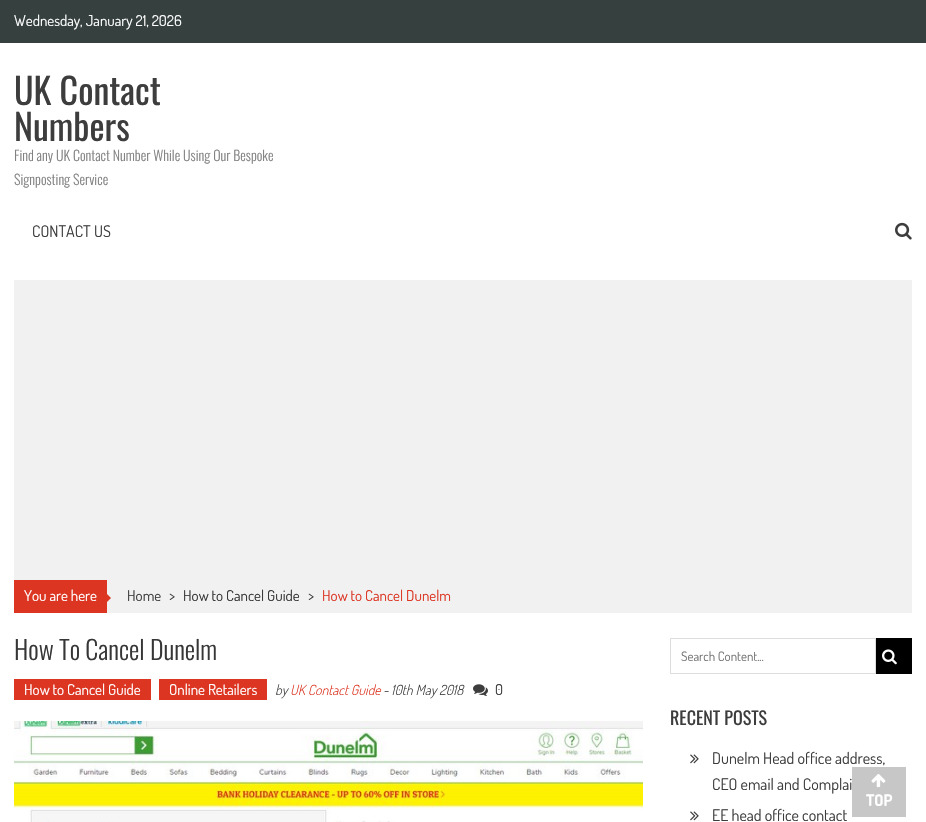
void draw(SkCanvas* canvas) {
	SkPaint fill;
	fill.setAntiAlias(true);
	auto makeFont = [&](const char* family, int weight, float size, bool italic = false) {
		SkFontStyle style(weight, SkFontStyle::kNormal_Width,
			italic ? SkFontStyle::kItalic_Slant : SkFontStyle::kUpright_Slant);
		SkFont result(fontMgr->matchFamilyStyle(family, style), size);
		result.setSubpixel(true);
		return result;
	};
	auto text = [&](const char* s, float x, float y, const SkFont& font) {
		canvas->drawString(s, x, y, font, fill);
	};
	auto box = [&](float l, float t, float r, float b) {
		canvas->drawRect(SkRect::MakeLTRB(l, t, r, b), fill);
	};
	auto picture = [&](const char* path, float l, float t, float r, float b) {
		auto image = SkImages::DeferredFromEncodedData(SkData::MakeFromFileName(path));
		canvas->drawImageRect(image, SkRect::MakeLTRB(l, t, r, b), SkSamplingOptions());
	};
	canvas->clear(0xFFFFFFFF);
	fill.setColor(0xFF36403F);
	box(0, 0, 926, 43);
	picture("image0.png", 895, 222, 912, 240);
	fill.setColor(0xFFF1F1F1);
	box(14, 280, 912, 613);
	fill.setColor(0xFFDC3522);
	box(14, 580, 107, 613);
	canvas->drawPath(SkPathBuilder().moveTo(106, 603).lineTo(106, 593).lineTo(111, 598).close().detach(), fill);
	box(14, 679, 151, 700);
	box(159, 679, 267, 700);
	picture("image1.png", 473, 684, 488, 696);
	picture("image2.png", 14, 721, 643, 822);
	fill.setStyle(SkPaint::kStroke_Style);
	fill.setStrokeWidth(1);
	fill.setColor(0xFFDDDDDD);
	canvas->drawRect(SkRect::MakeLTRB(670.5f, 638.5f, 875.5f, 673.5f), fill);
	fill.setStyle(SkPaint::kFill_Style);
	fill.setColor(0xFF000000);
	box(876, 638, 912, 674);
	picture("image3.png", 882, 649, 897, 665);
	picture("image4.png", 690, 754, 699, 764);
	picture("image4.png", 690, 811, 699, 821);
	fill.setColor(0xFFC7C7C7);
	box(852, 767, 906, 817);
	picture("image5.png", 871, 774, 886, 788);
	auto font1 = makeFont("Dosis", 400, 15);
	fill.setColor(0xFFFFFFFF);
	text("Wednesday, January 21, 2026", 14, 26, font1);
	auto font2 = makeFont("Oswald", 400, 36);
	fill.setColor(0xFF3D3D3D);
	text("UK Contact", 14, 105, font2);
	text("Numbers", 14, 141, font2);
	auto font3 = makeFont("Oswald", 300, 14);
	fill.setColor(0xFF818181);
	text("Find any UK Contact Number While Using Our Bespoke", 14, 161, font3);
	text("Signposting Service", 14, 185, font3);
	auto font4 = makeFont("Dosis", 400, 16);
	fill.setColor(0xFF3D3D3D);
	text("CONTACT US", 32, 237, font4);
	fill.setColor(0xFFFFFFFF);
	text("You are here", 24, 601, font1);
	fill.setColor(0xFF3D3D3D);
	text("Home", 127, 601, font1);
	text(">", 169, 601, font1);
	fill.setColor(0xFF363636);
	text("How to Cancel Guide", 183, 601, font1);
	fill.setColor(0xFF3D3D3D);
	text(">", 308, 601, font1);
	fill.setColor(0xFFDC3522);
	text("How to Cancel Dunelm", 322, 601, font1);
	auto font5 = makeFont("Oswald", 300, 26);
	fill.setColor(0xFF363636);
	text("How To Cancel Dunelm", 14, 660, font5);
	fill.setColor(0xFFFFFFFF);
	text("How to Cancel Guide", 24, 695, font1);
	text("Online Retailers", 169, 695, font1);
	auto font6 = makeFont("Dosis", 300, 14, true);
	fill.setColor(0xFF3D3D3D);
	text("by", 275, 695, font6);
	fill.setColor(0xFFDC3522);
	text("UK Contact Guide", 290, 695, font6);
	fill.setColor(0xFF3D3D3D);
	text("- 10th May 2018", 383, 695, font6);
	text("0", 495, 695, font1);
	auto font7 = makeFont("Dosis", 400, 13);
	fill.setColor(0xFF757575);
	text("Search Content...", 681, 661, font7);
	auto font8 = makeFont("Oswald", 400, 18);
	fill.setColor(0xFF3D3D3D);
	text("RECENT POSTS", 670, 725, font8);
	text("Dunelm Head office address,", 712, 764, font4);
	text("CEO email and Complai", 712, 790, font4);
	text("EE head office contact", 712, 821, font4);
	auto font9 = makeFont("Dosis", 700, 16);
	fill.setColor(0xFFFFFFFF);
	text("TOP", 866, 806, font9);
}
